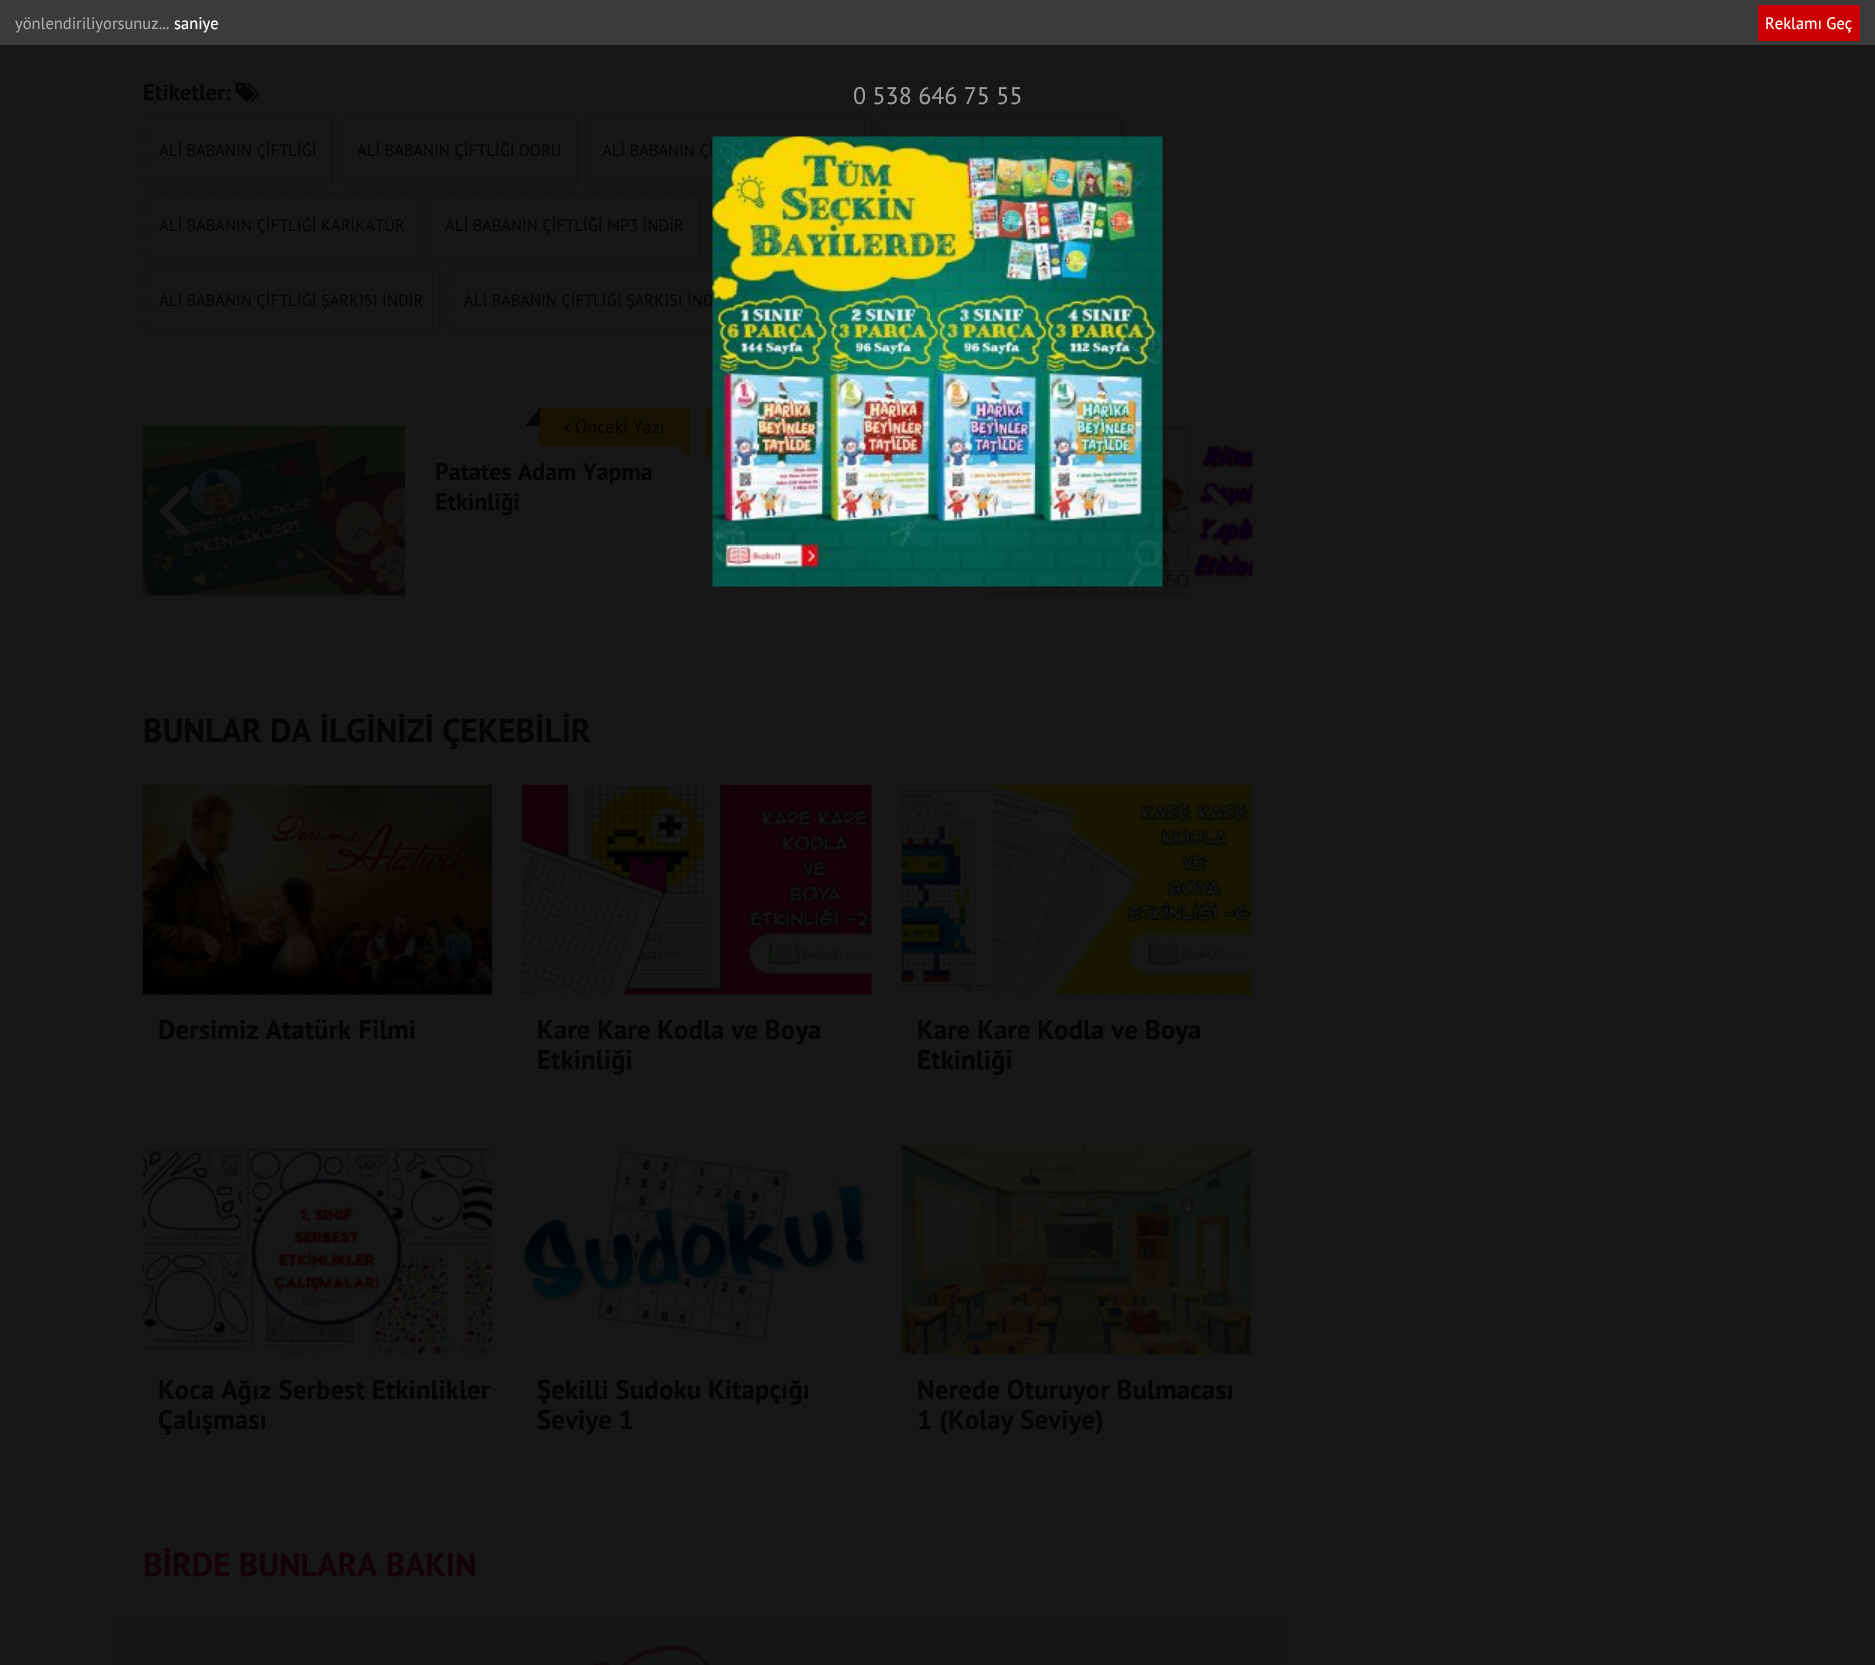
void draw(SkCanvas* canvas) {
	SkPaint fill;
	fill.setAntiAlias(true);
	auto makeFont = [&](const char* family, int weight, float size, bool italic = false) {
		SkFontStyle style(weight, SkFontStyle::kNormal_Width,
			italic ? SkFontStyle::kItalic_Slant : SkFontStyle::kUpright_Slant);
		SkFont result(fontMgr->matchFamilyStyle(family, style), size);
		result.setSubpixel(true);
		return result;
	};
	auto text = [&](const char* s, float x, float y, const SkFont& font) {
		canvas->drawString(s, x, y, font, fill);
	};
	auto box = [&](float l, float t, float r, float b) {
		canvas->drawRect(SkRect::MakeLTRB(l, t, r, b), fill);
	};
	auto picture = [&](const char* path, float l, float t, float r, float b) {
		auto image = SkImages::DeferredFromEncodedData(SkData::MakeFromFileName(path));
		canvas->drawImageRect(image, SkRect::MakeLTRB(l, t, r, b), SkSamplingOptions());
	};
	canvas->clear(0xFF171717);
	picture("image0.png", 0, 0, 1874, 1664);
	fill.setColor(0xF23C3C3C);
	box(0, 0, 1875, 45);
	fill.setColor(0xFFCC0000);
	box(1758, 5, 1860, 41);
	picture("image2.png", 235, 82, 260, 102);
	fill.setStyle(SkPaint::kStroke_Style);
	fill.setStrokeWidth(2);
	fill.setColor(0xFF141414);
	canvas->drawRoundRect(SkRect::MakeLTRB(144, 118, 332, 184), 2, 2, fill);
	canvas->drawRoundRect(SkRect::MakeLTRB(342, 118, 577, 184), 2, 2, fill);
	canvas->drawRoundRect(SkRect::MakeLTRB(586, 118, 871, 184), 2, 2, fill);
	canvas->drawRoundRect(SkRect::MakeLTRB(880, 118, 1121, 184), 2, 2, fill);
	canvas->drawRoundRect(SkRect::MakeLTRB(144, 193, 421, 259), 2, 2, fill);
	canvas->drawRoundRect(SkRect::MakeLTRB(430, 193, 700, 259), 2, 2, fill);
	canvas->drawRoundRect(SkRect::MakeLTRB(709, 193, 944, 259), 2, 2, fill);
	canvas->drawRoundRect(SkRect::MakeLTRB(144, 268, 439, 334), 2, 2, fill);
	canvas->drawRoundRect(SkRect::MakeLTRB(448, 268, 839, 334), 2, 2, fill);
	fill.setStyle(SkPaint::kFill_Style);
	fill.setColor(0xFF171201);
	box(539, 408, 690, 446);
	fill.setColor(0xF2050505);
	canvas->drawPath(SkPathBuilder().moveTo(540, 426).lineTo(525, 426).lineTo(540, 408).close().detach(), fill);
	picture("image3.png", 564, 422, 571, 433);
	fill.setColor(0xFF171201);
	canvas->drawPath(SkPathBuilder().moveTo(675, 444).lineTo(690, 444).lineTo(690, 459).close().detach(), fill);
	picture("image4.png", 142, 426, 405, 596);
	picture("image5.png", 159, 486, 189, 537);
	box(705, 408, 713, 444);
	canvas->drawPath(SkPathBuilder().moveTo(705, 444).lineTo(720, 444).lineTo(705, 459).close().detach(), fill);
	picture("image6.png", 990, 426, 1253, 595);
	fill.setColor(0xFF171717);
	canvas->drawPath(SkPathBuilder().moveTo(1235, 510).cubicTo(1238, 512, 1232, 516, 1231, 516).lineTo(1216, 532).cubicTo(1216, 532, 1212, 538, 1210, 536).cubicTo(1209, 535, 1205, 533, 1207, 531).lineTo(1227, 511).lineTo(1210, 495).cubicTo(1207, 491, 1205, 491, 1208, 488).cubicTo(1212, 484, 1212, 487, 1216, 490).close().detach(), fill);
	picture("image7.png", 142, 784, 492, 995);
	picture("image8.png", 522, 784, 872, 995);
	picture("image9.png", 901, 784, 1251, 995);
	picture("image10.png", 142, 1144, 492, 1355);
	picture("image11.png", 522, 1145, 868, 1346);
	picture("image12.png", 901, 1144, 1251, 1355);
	picture("image13.png", 113, 1619, 1283, 1665);
	auto font1 = makeFont("PT Sans", 400, 16.5f);
	fill.setColor(0xFFABABAB);
	text("yönlendiriliyorsunuz...", 15, 29, font1);
	fill.setColor(0xFFFFFFFF);
	text("saniye", 174, 29, font1);
	text("Reklamı Geç", 1765, 29, font1);
	auto font2 = makeFont("PT Sans", 400, 24);
	fill.setColor(0xFFA09F9F);
	text("0 538 646 75 55", 853, 104, font2);
	auto font3 = makeFont("PT Sans", 700, 22.5f);
	fill.setColor(0xFF040404);
	text("Etiketler:", 143, 100, font3);
	text("ALİ BABANIN ÇİFTLİĞİ", 159, 156, font1);
	text("ALİ BABANIN ÇİFTLİĞİ DORU", 357, 156, font1);
	text("ALİ BABANIN Çİ", 602, 156, font1);
	text("ALİ BABANIN ÇİFTLİĞİ KARİKATÜR", 159, 231, font1);
	text("ALİ BABANIN ÇİFTLİĞİ MP3 İNDİR", 445, 231, font1);
	text("ALİ BABANIN ÇİFTLİĞİ ŞARKISI İNDİR", 159, 306, font1);
	text("ALİ BABANIN ÇİFTLİĞİ ŞARKISI İND", 464, 306, font1);
	picture("image1.png", 712, 136, 1163, 587);
	auto font4 = makeFont("PT Sans", 400, 18);
	text("Önceki Yazı", 575, 433, font4);
	auto font5 = makeFont("PT Sans", 700, 24);
	text("Patates Adam Yapma", 435, 480, font5);
	text("Etkinliği", 435, 510, font5);
	auto font6 = makeFont("PT Sans", 700, 33);
	text("BUNLAR DA İLGİNİZİ ÇEKEBİLİR", 143, 742, font6);
	auto font7 = makeFont("PT Sans", 700, 27);
	text("Dersimiz Atatürk Filmi", 158, 1039, font7);
	text("Kare Kare Kodla ve Boya", 537, 1039, font7);
	text("Etkinliği", 537, 1069, font7);
	text("Kare Kare Kodla ve Boya", 917, 1039, font7);
	text("Etkinliği", 917, 1069, font7);
	text("Koca Ağız Serbest Etkinlikler", 158, 1399, font7);
	text("Çalışması", 158, 1429, font7);
	text("Şekilli Sudoku Kitapçığı", 537, 1399, font7);
	text("Seviye 1", 537, 1429, font7);
	text("Nerede Oturuyor Bulmacası", 917, 1399, font7);
	text("1 (Kolay Seviye)", 917, 1429, font7);
	fill.setColor(0xFF150108);
	text("BİRDE BUNLARA BAKIN", 143, 1576, font6);
}
